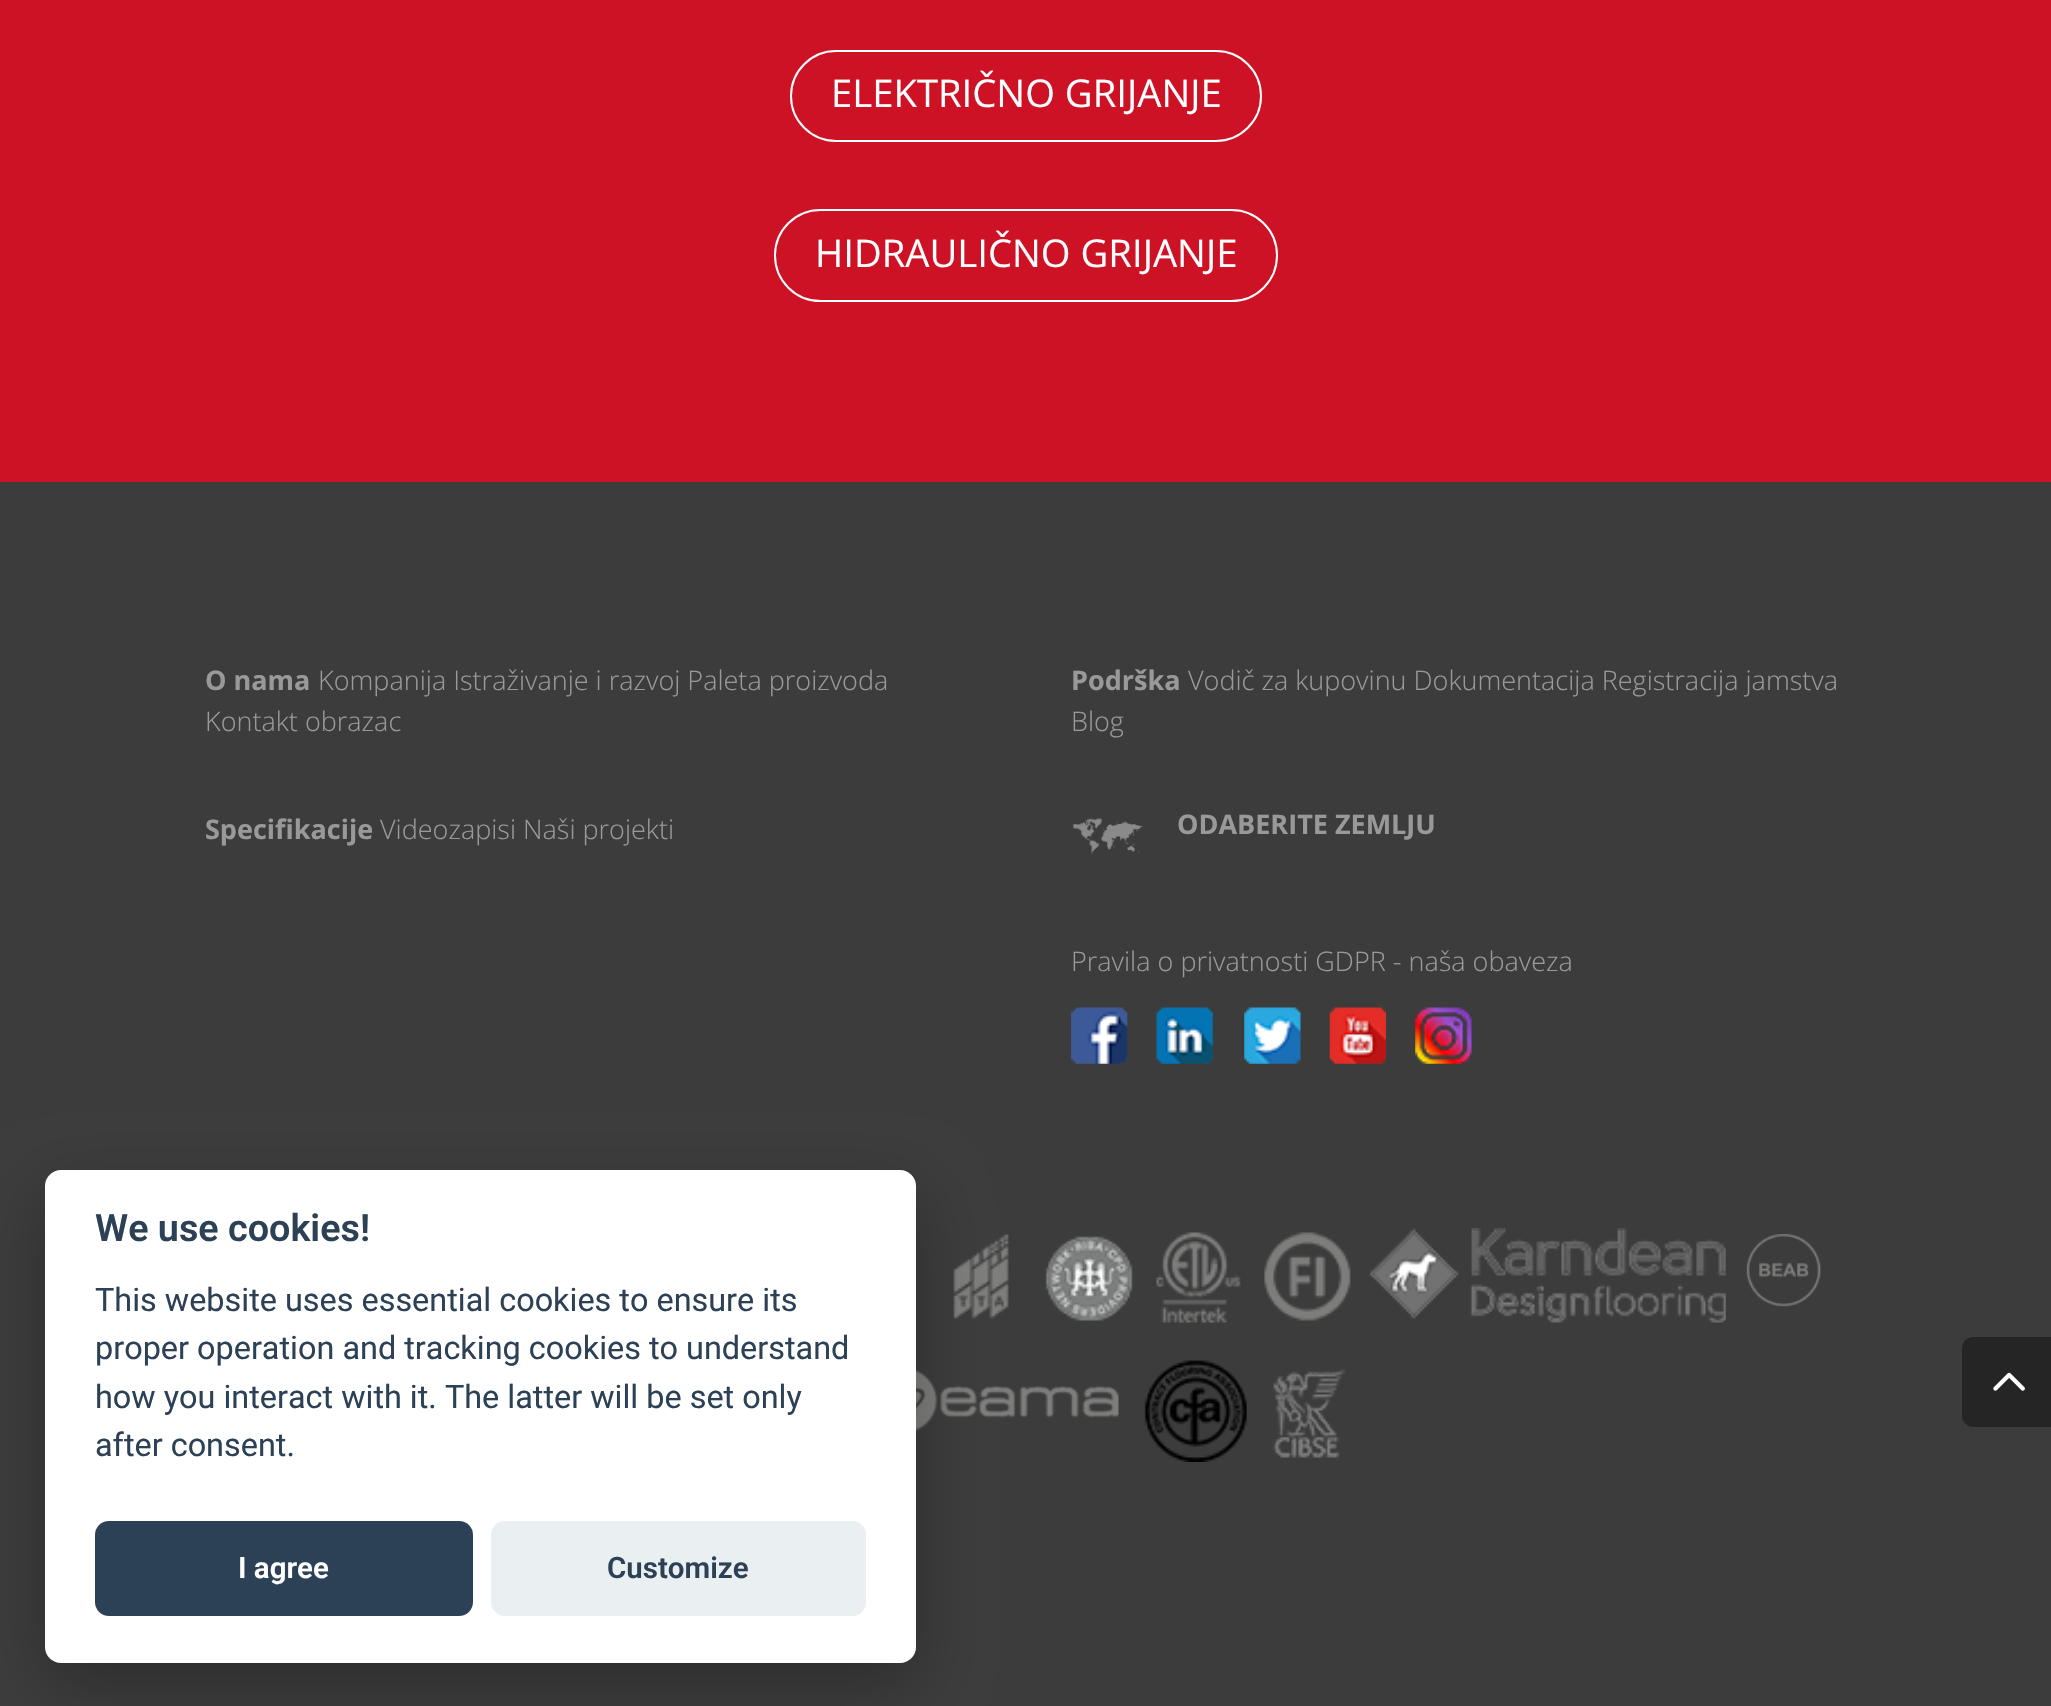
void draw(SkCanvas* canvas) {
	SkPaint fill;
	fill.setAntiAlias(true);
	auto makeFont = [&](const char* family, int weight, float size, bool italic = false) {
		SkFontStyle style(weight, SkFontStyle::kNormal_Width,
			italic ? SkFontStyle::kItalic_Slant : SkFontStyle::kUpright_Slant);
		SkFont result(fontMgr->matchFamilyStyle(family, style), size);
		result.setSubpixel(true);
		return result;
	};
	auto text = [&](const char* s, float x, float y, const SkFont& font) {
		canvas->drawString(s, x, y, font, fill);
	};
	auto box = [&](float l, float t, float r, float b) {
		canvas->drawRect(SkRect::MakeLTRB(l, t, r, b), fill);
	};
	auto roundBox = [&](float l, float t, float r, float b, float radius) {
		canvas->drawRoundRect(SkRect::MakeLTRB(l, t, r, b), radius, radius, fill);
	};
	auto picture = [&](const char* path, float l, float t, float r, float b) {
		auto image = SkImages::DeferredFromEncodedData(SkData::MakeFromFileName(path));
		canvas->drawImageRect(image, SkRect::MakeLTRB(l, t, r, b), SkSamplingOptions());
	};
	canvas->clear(0xFF3C3C3C);
	fill.setColor(0xFFCE1226);
	box(0, 0, 2051, 482);
	fill.setStyle(SkPaint::kStroke_Style);
	fill.setStrokeWidth(2);
	fill.setColor(0xFFFFFFFF);
	canvas->drawRoundRect(SkRect::MakeLTRB(791, 51, 1261, 141), 45, 45, fill);
	canvas->drawRoundRect(SkRect::MakeLTRB(775, 210, 1277, 301), 45.5f, 45.5f, fill);
	picture("image0.png", 1071, 818, 1143, 854);
	picture("image1.png", 1071, 1007, 1128, 1064);
	picture("image2.png", 1156, 1007, 1213, 1064);
	picture("image3.png", 1244, 1007, 1301, 1064);
	picture("image4.png", 1329, 1007, 1386, 1064);
	picture("image5.png", 1415, 1007, 1472, 1064);
	picture("image6.png", 953, 1234, 1009, 1319);
	picture("image7.png", 1045, 1236, 1133, 1321);
	picture("image8.png", 1156, 1232, 1241, 1323);
	picture("image9.png", 1264, 1232, 1351, 1321);
	picture("image10.png", 1369, 1228, 1726, 1323);
	picture("image11.png", 1746, 1234, 1821, 1307);
	picture("image12.png", 916, 1369, 1119, 1432);
	picture("image13.png", 1144, 1360, 1247, 1462);
	picture("image14.png", 1273, 1369, 1346, 1458);
	fill.setStyle(SkPaint::kFill_Style);
	fill.setColor(0xFF252525);
	canvas->drawPath(SkPathBuilder().moveTo(1973, 1337).lineTo(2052, 1337).lineTo(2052, 1427).lineTo(1973, 1427).cubicTo(1967, 1427, 1962, 1422, 1962, 1416).lineTo(1962, 1348).cubicTo(1962, 1342, 1967, 1337, 1973, 1337).close().detach(), fill);
	picture("image15.png", 1993, 1372, 2025, 1391);
	fill.setColor(0x47020203);
	fill.setMaskFilter(SkMaskFilter::MakeBlur(kNormal_SkBlurStyle, 34));
	canvas->drawRoundRect(SkRect::MakeLTRB(45, 1193, 916, 1685), 16, 16, fill);
	fill.setMaskFilter(nullptr);
	fill.setColor(0xFFFFFFFF);
	roundBox(45, 1170, 916, 1663, 16);
	fill.setColor(0xFF2D4156);
	roundBox(95, 1521, 473, 1616, 14);
	fill.setColor(0xFFEAEFF2);
	roundBox(491, 1521, 866, 1616, 14);
	auto font1 = makeFont("Open Sans", 400, 38.25f);
	fill.setColor(0xFFFFFFFF);
	text("ELEKTRIČNO GRIJANJE", 831, 107, font1);
	text("HIDRAULIČNO GRIJANJE", 815, 267, font1);
	auto font2 = makeFont("Open Sans", 700, 27);
	fill.setColor(0xFF999999);
	text("O nama", 205, 690, font2);
	auto font3 = makeFont("Open Sans", 300, 27);
	text("Kompanija Istraživanje i razvoj Paleta proizvoda", 318, 690, font3);
	text("Kontakt obrazac", 205, 731, font3);
	text("Podrška", 1071, 690, font2);
	text("Vodič za kupovinu Dokumentacija Registracija jamstva", 1188, 690, font3);
	text("Blog", 1071, 731, font3);
	text("Specifikacije", 205, 839, font2);
	text("Videozapisi Naši projekti", 380, 839, font3);
	text("ODABERITE ZEMLJU", 1177, 834, font2);
	text("Pravila o privatnosti GDPR - naša obaveza", 1071, 971, font3);
	auto font4 = makeFont("Roboto", 600, 37.75f);
	fill.setColor(0xFF2D4156);
	text("We use cookies!", 95, 1241, font4);
	auto font5 = makeFont("Roboto", 400, 32.4f);
	text("This website uses essential cookies to ensure its", 95, 1311, font5);
	text("proper operation and tracking cookies to understand", 95, 1359, font5);
	text("how you interact with it. The latter will be set only", 95, 1408, font5);
	text("after consent.", 95, 1456, font5);
	auto font6 = makeFont("Roboto", 600, 29.5f);
	fill.setColor(0xFFFFFFFF);
	text("I agree", 238, 1578, font6);
	fill.setColor(0xFF2D4156);
	text("Customize", 607, 1578, font6);
}
